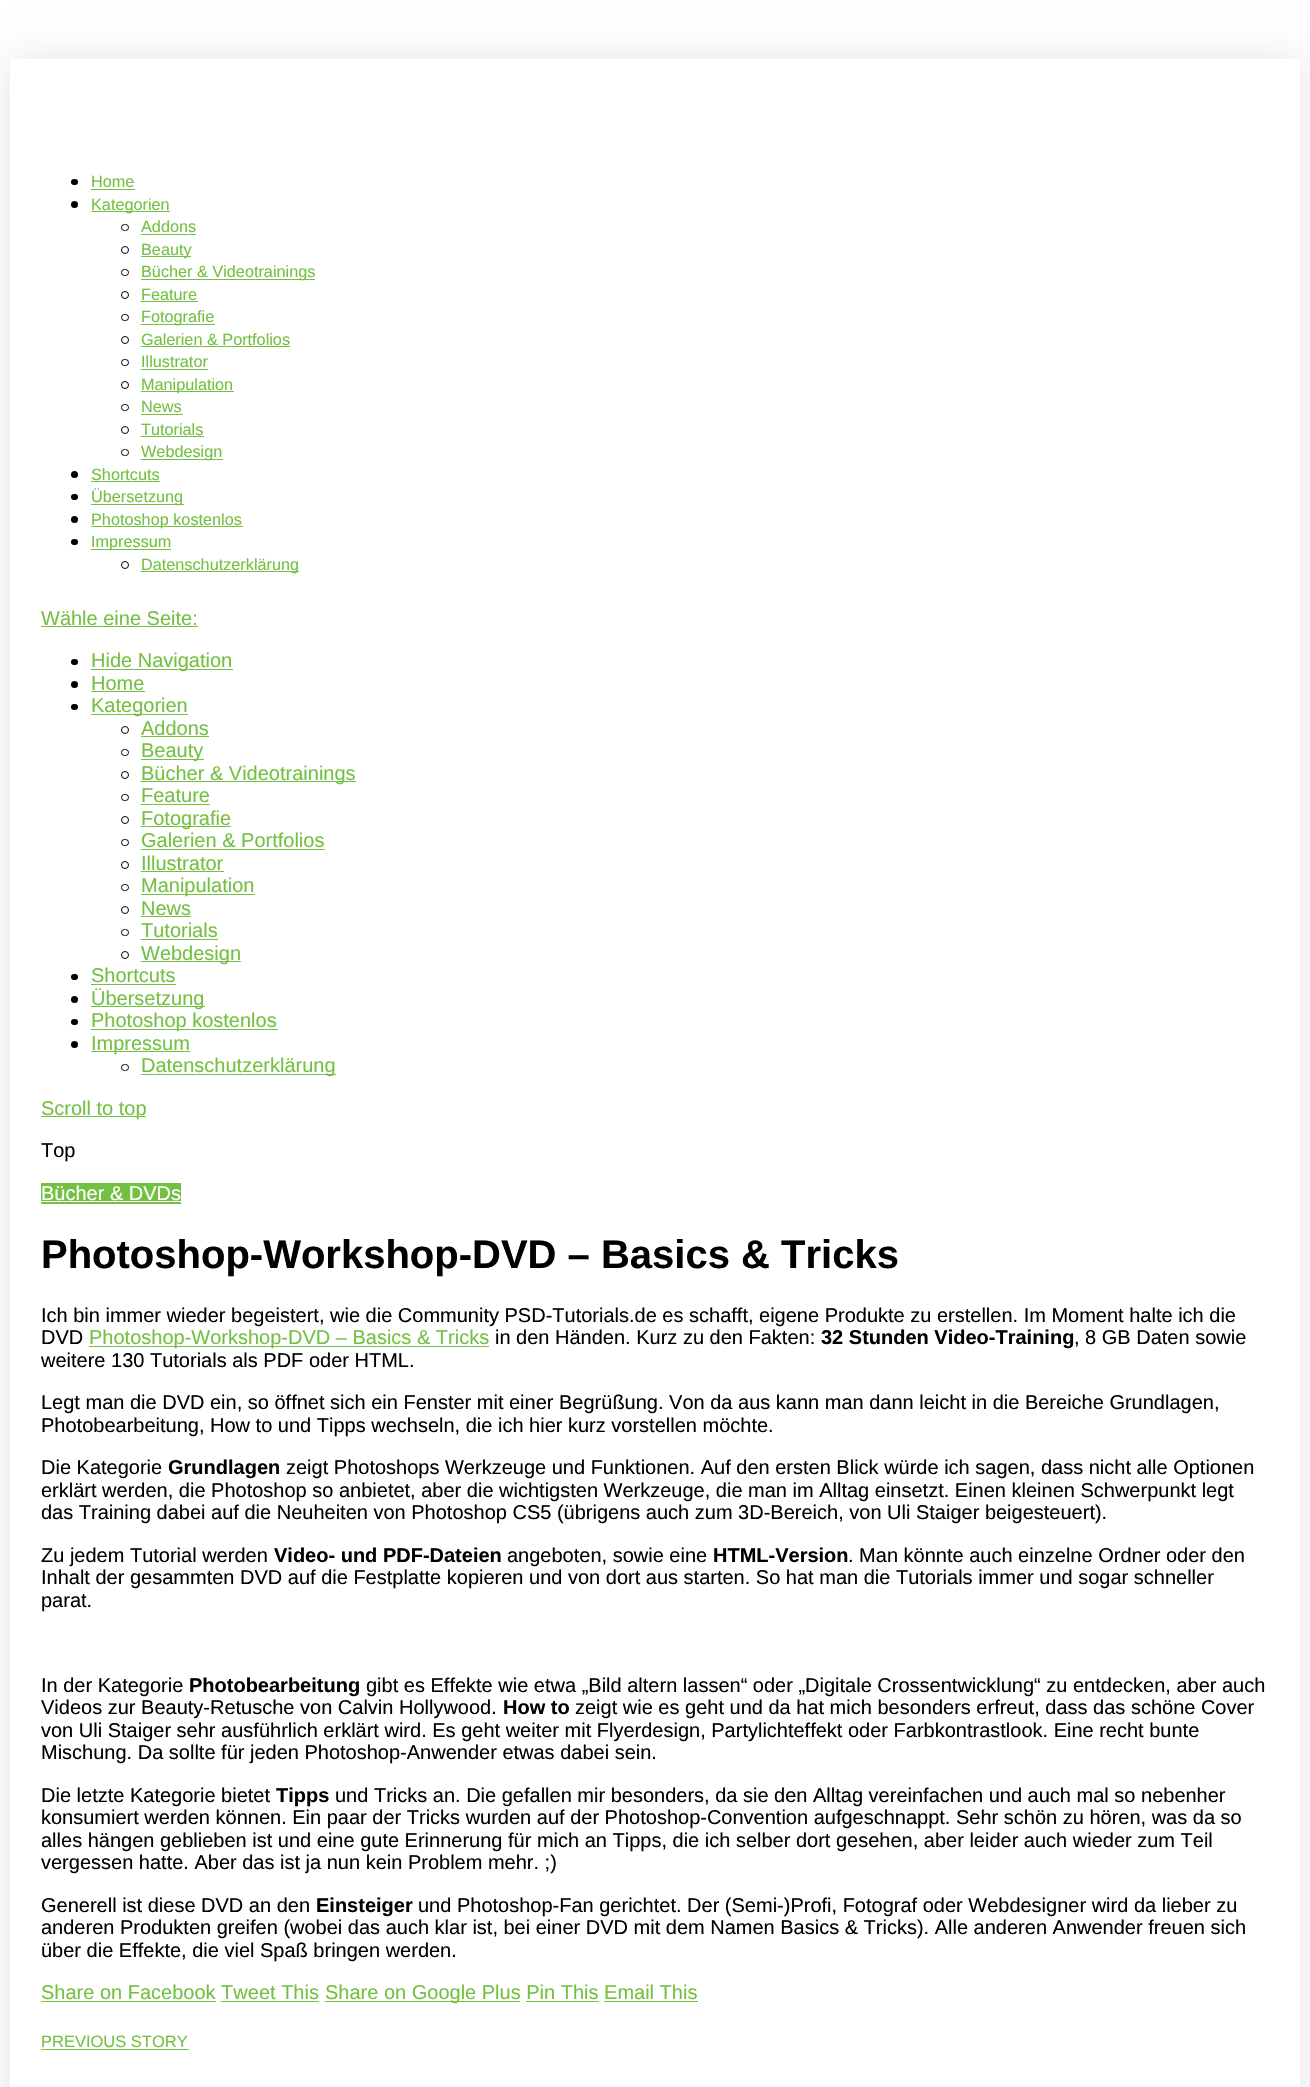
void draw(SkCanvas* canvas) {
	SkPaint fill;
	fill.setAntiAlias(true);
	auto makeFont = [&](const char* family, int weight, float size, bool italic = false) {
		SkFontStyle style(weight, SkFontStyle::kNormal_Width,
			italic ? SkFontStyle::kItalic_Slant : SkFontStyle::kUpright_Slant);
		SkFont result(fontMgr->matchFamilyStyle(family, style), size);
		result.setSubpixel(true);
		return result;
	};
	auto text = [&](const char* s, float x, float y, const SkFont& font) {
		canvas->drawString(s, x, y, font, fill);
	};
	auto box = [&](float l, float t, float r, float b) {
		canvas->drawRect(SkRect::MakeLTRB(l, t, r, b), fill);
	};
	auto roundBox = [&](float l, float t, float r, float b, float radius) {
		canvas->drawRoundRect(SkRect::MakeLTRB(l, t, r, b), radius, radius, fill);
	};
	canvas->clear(0xFFFFFFFF);
	canvas->save();
	canvas->clipPath(SkPathBuilder(SkPathFillType::kEvenOdd).moveTo(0, 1).lineTo(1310, 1).lineTo(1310, 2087).lineTo(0, 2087).close().moveTo(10, 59).lineTo(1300, 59).lineTo(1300, 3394).lineTo(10, 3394).close().detach(), true);
	fill.setColor(0x1A000000);
	fill.setMaskFilter(SkMaskFilter::MakeBlur(kNormal_SkBlurStyle, 19));
	canvas->drawRect(SkRect::MakeLTRB(10, 59, 1300, 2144), fill);
	fill.setMaskFilter(nullptr);
	canvas->restore();
	fill.setColor(0xFF000000);
	roundBox(71, 179, 78, 185, 3);
	fill.setColor(0xFF74C042);
	box(91, 189, 135, 190);
	fill.setColor(0xFF000000);
	canvas->drawCircle(74.5f, 204.5f, 3.5f, fill);
	fill.setColor(0xFF74C042);
	box(91, 211, 170, 212);
	fill.setStyle(SkPaint::kStroke_Style);
	fill.setStrokeWidth(1);
	fill.setColor(0xFF000000);
	canvas->drawRoundRect(SkRect::MakeLTRB(121.5f, 224.5f, 128.5f, 230.5f), 3, 3, fill);
	fill.setStyle(SkPaint::kFill_Style);
	fill.setColor(0xFF74C042);
	box(141, 234, 196, 235);
	fill.setStyle(SkPaint::kStroke_Style);
	fill.setColor(0xFF000000);
	canvas->drawCircle(125, 250, 3.5f, fill);
	fill.setStyle(SkPaint::kFill_Style);
	fill.setColor(0xFF74C042);
	box(141, 256, 191, 257);
	fill.setStyle(SkPaint::kStroke_Style);
	fill.setColor(0xFF000000);
	canvas->drawRoundRect(SkRect::MakeLTRB(121.5f, 269.5f, 128.5f, 275.5f), 3, 3, fill);
	fill.setStyle(SkPaint::kFill_Style);
	fill.setColor(0xFF74C042);
	box(141, 279, 315, 280);
	fill.setStyle(SkPaint::kStroke_Style);
	fill.setColor(0xFF000000);
	canvas->drawCircle(125, 295, 3.5f, fill);
	fill.setStyle(SkPaint::kFill_Style);
	fill.setColor(0xFF74C042);
	box(141, 301, 198, 302);
	fill.setStyle(SkPaint::kStroke_Style);
	fill.setColor(0xFF000000);
	canvas->drawRoundRect(SkRect::MakeLTRB(121.5f, 314.5f, 128.5f, 320.5f), 3, 3, fill);
	fill.setStyle(SkPaint::kFill_Style);
	fill.setColor(0xFF74C042);
	box(141, 324, 215, 325);
	fill.setStyle(SkPaint::kStroke_Style);
	fill.setColor(0xFF000000);
	canvas->drawCircle(125, 340, 3.5f, fill);
	fill.setStyle(SkPaint::kFill_Style);
	fill.setColor(0xFF74C042);
	box(141, 346, 290, 347);
	fill.setStyle(SkPaint::kStroke_Style);
	fill.setColor(0xFF000000);
	canvas->drawRoundRect(SkRect::MakeLTRB(121.5f, 359.5f, 128.5f, 365.5f), 3, 3, fill);
	fill.setStyle(SkPaint::kFill_Style);
	fill.setColor(0xFF74C042);
	box(141, 369, 208, 370);
	fill.setStyle(SkPaint::kStroke_Style);
	fill.setColor(0xFF000000);
	canvas->drawCircle(125, 385, 3.5f, fill);
	fill.setStyle(SkPaint::kFill_Style);
	fill.setColor(0xFF74C042);
	box(141, 391, 234, 392);
	fill.setStyle(SkPaint::kStroke_Style);
	fill.setColor(0xFF000000);
	canvas->drawRoundRect(SkRect::MakeLTRB(121.5f, 404.5f, 128.5f, 410.5f), 3, 3, fill);
	fill.setStyle(SkPaint::kFill_Style);
	fill.setColor(0xFF74C042);
	box(141, 414, 183, 415);
	fill.setStyle(SkPaint::kStroke_Style);
	fill.setColor(0xFF000000);
	canvas->drawCircle(125, 430, 3.5f, fill);
	fill.setStyle(SkPaint::kFill_Style);
	fill.setColor(0xFF74C042);
	box(141, 436, 204, 437);
	fill.setStyle(SkPaint::kStroke_Style);
	fill.setColor(0xFF000000);
	canvas->drawRoundRect(SkRect::MakeLTRB(121.5f, 449.5f, 128.5f, 455.5f), 3, 3, fill);
	fill.setStyle(SkPaint::kFill_Style);
	fill.setColor(0xFF74C042);
	box(141, 459, 223, 460);
	fill.setColor(0xFF000000);
	canvas->drawCircle(74.5f, 474.5f, 3.5f, fill);
	fill.setColor(0xFF74C042);
	box(91, 481, 160, 482);
	fill.setColor(0xFF000000);
	roundBox(71, 494, 78, 500, 3);
	fill.setColor(0xFF74C042);
	box(91, 504, 184, 505);
	fill.setColor(0xFF000000);
	canvas->drawCircle(74.5f, 519.5f, 3.5f, fill);
	fill.setColor(0xFF74C042);
	box(91, 526, 243, 527);
	fill.setColor(0xFF000000);
	roundBox(71, 539, 78, 545, 3);
	fill.setColor(0xFF74C042);
	box(91, 549, 171, 550);
	fill.setStyle(SkPaint::kStroke_Style);
	fill.setColor(0xFF000000);
	canvas->drawCircle(125, 565, 3.5f, fill);
	fill.setStyle(SkPaint::kFill_Style);
	fill.setColor(0xFF74C042);
	box(141, 571, 299, 572);
	box(41, 626, 198, 627);
	fill.setColor(0xFF000000);
	roundBox(71, 659, 78, 665, 3);
	fill.setColor(0xFF74C042);
	box(91, 669, 233, 670);
	fill.setColor(0xFF000000);
	canvas->drawCircle(74.5f, 684.5f, 3.5f, fill);
	fill.setColor(0xFF74C042);
	box(91, 691, 145, 692);
	fill.setColor(0xFF000000);
	roundBox(71, 704, 78, 710, 3);
	fill.setColor(0xFF74C042);
	box(91, 714, 188, 715);
	fill.setStyle(SkPaint::kStroke_Style);
	fill.setColor(0xFF000000);
	canvas->drawCircle(125, 730, 3.5f, fill);
	fill.setStyle(SkPaint::kFill_Style);
	fill.setColor(0xFF74C042);
	box(141, 736, 209, 737);
	fill.setStyle(SkPaint::kStroke_Style);
	fill.setColor(0xFF000000);
	canvas->drawRoundRect(SkRect::MakeLTRB(121.5f, 749.5f, 128.5f, 755.5f), 3, 3, fill);
	fill.setStyle(SkPaint::kFill_Style);
	fill.setColor(0xFF74C042);
	box(141, 759, 204, 760);
	fill.setStyle(SkPaint::kStroke_Style);
	fill.setColor(0xFF000000);
	canvas->drawCircle(125, 775, 3.5f, fill);
	fill.setStyle(SkPaint::kFill_Style);
	fill.setColor(0xFF74C042);
	box(141, 781, 356, 782);
	fill.setStyle(SkPaint::kStroke_Style);
	fill.setColor(0xFF000000);
	canvas->drawRoundRect(SkRect::MakeLTRB(121.5f, 794.5f, 128.5f, 800.5f), 3, 3, fill);
	fill.setStyle(SkPaint::kFill_Style);
	fill.setColor(0xFF74C042);
	box(141, 804, 210, 805);
	fill.setStyle(SkPaint::kStroke_Style);
	fill.setColor(0xFF000000);
	canvas->drawCircle(125, 820, 3.5f, fill);
	fill.setStyle(SkPaint::kFill_Style);
	fill.setColor(0xFF74C042);
	box(141, 826, 231, 827);
	fill.setStyle(SkPaint::kStroke_Style);
	fill.setColor(0xFF000000);
	canvas->drawRoundRect(SkRect::MakeLTRB(121.5f, 839.5f, 128.5f, 845.5f), 3, 3, fill);
	fill.setStyle(SkPaint::kFill_Style);
	fill.setColor(0xFF74C042);
	box(141, 849, 325, 850);
	fill.setStyle(SkPaint::kStroke_Style);
	fill.setColor(0xFF000000);
	canvas->drawCircle(125, 865, 3.5f, fill);
	fill.setStyle(SkPaint::kFill_Style);
	fill.setColor(0xFF74C042);
	box(141, 871, 224, 872);
	fill.setStyle(SkPaint::kStroke_Style);
	fill.setColor(0xFF000000);
	canvas->drawRoundRect(SkRect::MakeLTRB(121.5f, 884.5f, 128.5f, 890.5f), 3, 3, fill);
	fill.setStyle(SkPaint::kFill_Style);
	fill.setColor(0xFF74C042);
	box(141, 894, 255, 895);
	fill.setStyle(SkPaint::kStroke_Style);
	fill.setColor(0xFF000000);
	canvas->drawCircle(125, 910, 3.5f, fill);
	fill.setStyle(SkPaint::kFill_Style);
	fill.setColor(0xFF74C042);
	box(141, 916, 191, 917);
	fill.setStyle(SkPaint::kStroke_Style);
	fill.setColor(0xFF000000);
	canvas->drawRoundRect(SkRect::MakeLTRB(121.5f, 929.5f, 128.5f, 935.5f), 3, 3, fill);
	fill.setStyle(SkPaint::kFill_Style);
	fill.setColor(0xFF74C042);
	box(141, 939, 218, 940);
	fill.setStyle(SkPaint::kStroke_Style);
	fill.setColor(0xFF000000);
	canvas->drawCircle(125, 955, 3.5f, fill);
	fill.setStyle(SkPaint::kFill_Style);
	fill.setColor(0xFF74C042);
	box(141, 961, 241, 962);
	fill.setColor(0xFF000000);
	roundBox(71, 974, 78, 980, 3);
	fill.setColor(0xFF74C042);
	box(91, 984, 176, 985);
	fill.setColor(0xFF000000);
	canvas->drawCircle(74.5f, 999.5f, 3.5f, fill);
	fill.setColor(0xFF74C042);
	box(91, 1006, 205, 1007);
	fill.setColor(0xFF000000);
	roundBox(71, 1019, 78, 1025, 3);
	fill.setColor(0xFF74C042);
	box(91, 1029, 278, 1030);
	fill.setColor(0xFF000000);
	canvas->drawCircle(74.5f, 1044.5f, 3.5f, fill);
	fill.setColor(0xFF74C042);
	box(91, 1051, 190, 1052);
	fill.setStyle(SkPaint::kStroke_Style);
	fill.setColor(0xFF000000);
	canvas->drawRoundRect(SkRect::MakeLTRB(121.5f, 1064.5f, 128.5f, 1070.5f), 3, 3, fill);
	fill.setStyle(SkPaint::kFill_Style);
	fill.setColor(0xFF74C042);
	box(141, 1074, 336, 1075);
	box(41, 1116, 146, 1117);
	box(41, 1183, 181, 1204);
	fill.setColor(0xFFFFFFFF);
	box(41, 1201, 181, 1202);
	fill.setColor(0xFF74C042);
	box(89, 1346, 489, 1347);
	box(41, 2001, 216, 2002);
	box(325, 2001, 520, 2002);
	box(221, 2001, 319, 2002);
	box(526, 2001, 599, 2002);
	box(604, 2001, 698, 2002);
	box(41, 2049, 189, 2050);
	auto font1 = makeFont("Liberation Sans", 400, 16.25f);
	text("Home", 91, 187, font1);
	text("Kategorien", 91, 210, font1);
	text("Addons", 141, 232, font1);
	text("Beauty", 141, 255, font1);
	text("Bücher & Videotrainings", 141, 277, font1);
	text("Feature", 141, 300, font1);
	text("Fotografie", 141, 322, font1);
	text("Galerien & Portfolios", 141, 345, font1);
	text("Illustrator", 141, 367, font1);
	text("Manipulation", 141, 390, font1);
	text("News", 141, 412, font1);
	text("Tutorials", 141, 435, font1);
	text("Webdesign", 141, 457, font1);
	text("Shortcuts", 91, 480, font1);
	text("Übersetzung", 91, 502, font1);
	text("Photoshop kostenlos", 91, 525, font1);
	text("Impressum", 91, 547, font1);
	text("Datenschutzerklärung", 141, 570, font1);
	auto font2 = makeFont("Liberation Sans", 400, 20);
	text("Wähle eine Seite:", 41, 625, font2);
	text("Hide Navigation", 91, 667, font2);
	text("Home", 91, 690, font2);
	text("Kategorien", 91, 712, font2);
	text("Addons", 141, 735, font2);
	text("Beauty", 141, 757, font2);
	text("Bücher & Videotrainings", 141, 780, font2);
	text("Feature", 141, 802, font2);
	text("Fotografie", 141, 825, font2);
	text("Galerien & Portfolios", 141, 847, font2);
	text("Illustrator", 141, 870, font2);
	text("Manipulation", 141, 892, font2);
	text("News", 141, 915, font2);
	text("Tutorials", 141, 937, font2);
	text("Webdesign", 141, 960, font2);
	text("Shortcuts", 91, 982, font2);
	text("Übersetzung", 91, 1005, font2);
	text("Photoshop kostenlos", 91, 1027, font2);
	text("Impressum", 91, 1050, font2);
	text("Datenschutzerklärung", 141, 1072, font2);
	text("Scroll to top", 41, 1115, font2);
	fill.setColor(0xFF000000);
	text("Top", 41, 1157, font2);
	fill.setColor(0xFFFFFFFF);
	text("Bücher & DVDs", 41, 1200, font2);
	auto font3 = makeFont("Liberation Sans", 700, 40);
	fill.setColor(0xFF000000);
	text("Photoshop-Workshop-DVD – Basics & Tricks", 41, 1268, font3);
	text("Ich bin immer wieder begeistert, wie die Community PSD-Tutorials.de es schafft, eigene Produkte zu erstellen. Im Moment halte ich die", 41, 1322, font2);
	text("DVD", 41, 1344, font2);
	fill.setColor(0xFF74C042);
	text("Photoshop-Workshop-DVD – Basics & Tricks", 89, 1344, font2);
	fill.setColor(0xFF000000);
	text("in den Händen. Kurz zu den Fakten:", 495, 1344, font2);
	auto font4 = makeFont("Liberation Sans", 700, 20);
	text("32 Stunden Video-Training", 821, 1344, font4);
	text(", 8 GB Daten sowie", 1074, 1344, font2);
	text("weitere 130 Tutorials als PDF oder HTML.", 41, 1367, font2);
	text("Legt man die DVD ein, so öffnet sich ein Fenster mit einer Begrüßung. Von da aus kann man dann leicht in die Bereiche Grundlagen,", 41, 1409, font2);
	text("Photobearbeitung, How to und Tipps wechseln, die ich hier kurz vorstellen möchte.", 41, 1432, font2);
	text("Die Kategorie", 41, 1474, font2);
	text("Grundlagen", 168, 1474, font4);
	text("zeigt Photoshops Werkzeuge und Funktionen. Auf den ersten Blick würde ich sagen, dass nicht alle Optionen", 286, 1474, font2);
	text("erklärt werden, die Photoshop so anbietet, aber die wichtigsten Werkzeuge, die man im Alltag einsetzt. Einen kleinen Schwerpunkt legt", 41, 1497, font2);
	text("das Training dabei auf die Neuheiten von Photoshop CS5 (übrigens auch zum 3D-Bereich, von Uli Staiger beigesteuert).", 41, 1519, font2);
	text("Zu jedem Tutorial werden", 41, 1562, font2);
	text("Video- und PDF-Dateien", 274, 1562, font4);
	text("angeboten, sowie eine", 507, 1562, font2);
	text("HTML-Version", 713, 1562, font4);
	text(". Man könnte auch einzelne Ordner oder den", 848, 1562, font2);
	text("Inhalt der gesammten DVD auf die Festplatte kopieren und von dort aus starten. So hat man die Tutorials immer und sogar schneller", 41, 1584, font2);
	text("parat.", 41, 1607, font2);
	text("In der Kategorie", 41, 1692, font2);
	text("Photobearbeitung", 189, 1692, font4);
	text("gibt es Effekte wie etwa „Bild altern lassen“ oder „Digitale Crossentwicklung“ zu entdecken, aber auch", 366, 1692, font2);
	text("Videos zur Beauty-Retusche von Calvin Hollywood.", 41, 1714, font2);
	text("How to", 503, 1714, font4);
	text("zeigt wie es geht und da hat mich besonders erfreut, dass das schöne Cover", 575, 1714, font2);
	text("von Uli Staiger sehr ausführlich erklärt wird. Es geht weiter mit Flyerdesign, Partylichteffekt oder Farbkontrastlook. Eine recht bunte", 41, 1737, font2);
	text("Mischung. Da sollte für jeden Photoshop-Anwender etwas dabei sein.", 41, 1759, font2);
	text("Die letzte Kategorie bietet", 41, 1802, font2);
	text("Tipps", 276, 1802, font4);
	text("und Tricks an. Die gefallen mir besonders, da sie den Alltag vereinfachen und auch mal so nebenher", 335, 1802, font2);
	text("konsumiert werden können. Ein paar der Tricks wurden auf der Photoshop-Convention aufgeschnappt. Sehr schön zu hören, was da so", 41, 1824, font2);
	text("alles hängen geblieben ist und eine gute Erinnerung für mich an Tipps, die ich selber dort gesehen, aber leider auch wieder zum Teil", 41, 1847, font2);
	text("vergessen hatte. Aber das ist ja nun kein Problem mehr. ;)", 41, 1869, font2);
	text("Generell ist diese DVD an den", 41, 1912, font2);
	text("Einsteiger", 316, 1912, font4);
	text("und Photoshop-Fan gerichtet. Der (Semi-)Profi, Fotograf oder Webdesigner wird da lieber zu", 418, 1912, font2);
	text("anderen Produkten greifen (wobei das auch klar ist, bei einer DVD mit dem Namen Basics & Tricks). Alle anderen Anwender freuen sich", 41, 1934, font2);
	text("über die Effekte, die viel Spaß bringen werden.", 41, 1957, font2);
	fill.setColor(0xFF74C042);
	text("Share on Facebook Tweet This", 41, 1999, font2);
	text("Share on Google Plus Pin This Email This", 325, 1999, font2);
	auto font5 = makeFont("Liberation Sans", 400, 16.5f);
	text("PREVIOUS STORY", 41, 2047, font5);
}
